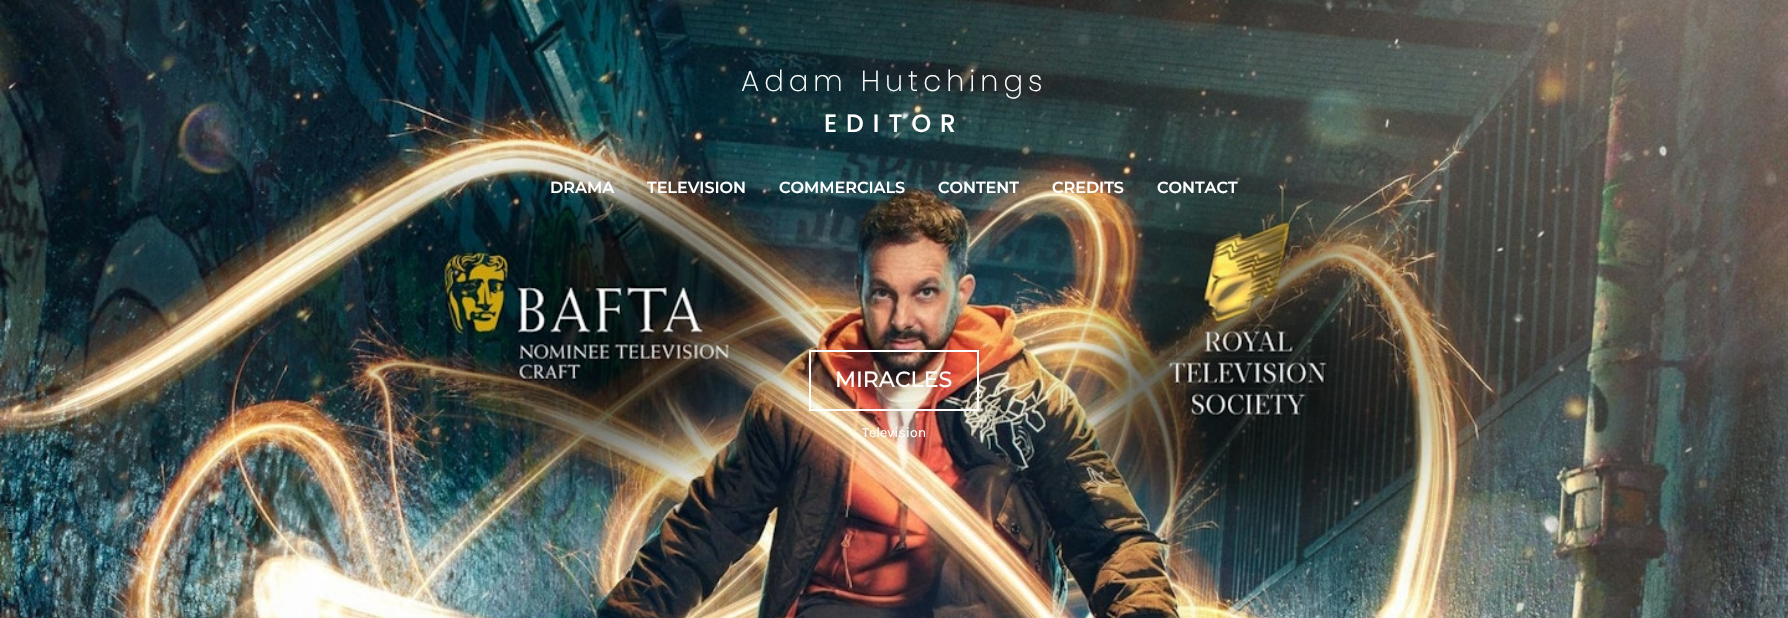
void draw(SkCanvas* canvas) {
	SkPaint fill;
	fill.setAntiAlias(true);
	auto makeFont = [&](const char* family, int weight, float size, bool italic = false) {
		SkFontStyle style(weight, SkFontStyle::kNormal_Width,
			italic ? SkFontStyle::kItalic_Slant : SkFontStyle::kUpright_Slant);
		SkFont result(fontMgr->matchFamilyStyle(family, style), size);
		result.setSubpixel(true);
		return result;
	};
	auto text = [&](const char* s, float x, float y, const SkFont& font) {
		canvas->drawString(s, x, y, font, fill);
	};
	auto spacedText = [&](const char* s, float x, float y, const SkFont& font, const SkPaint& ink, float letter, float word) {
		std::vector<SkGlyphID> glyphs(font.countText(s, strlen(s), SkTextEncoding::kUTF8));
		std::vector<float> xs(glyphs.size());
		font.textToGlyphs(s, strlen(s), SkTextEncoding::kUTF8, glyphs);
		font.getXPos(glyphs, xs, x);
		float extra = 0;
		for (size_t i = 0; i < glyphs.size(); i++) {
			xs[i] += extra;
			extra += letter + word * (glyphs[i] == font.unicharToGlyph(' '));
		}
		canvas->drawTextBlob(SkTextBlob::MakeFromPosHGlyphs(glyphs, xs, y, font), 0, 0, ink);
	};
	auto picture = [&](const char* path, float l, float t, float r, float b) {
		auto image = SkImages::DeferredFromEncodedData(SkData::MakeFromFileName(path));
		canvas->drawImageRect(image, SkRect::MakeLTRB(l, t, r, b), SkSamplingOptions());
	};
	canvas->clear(0xFFFFFFFF);
	picture("image0.png", 0, 0, 1788, 618);
	fill.setStyle(SkPaint::kStroke_Style);
	fill.setStrokeWidth(2);
	fill.setColor(0xFFFFFFFF);
	canvas->drawRect(SkRect::MakeLTRB(810, 351, 978, 410), fill);
	picture("image1.png", 0, 494, 16, 542);
	auto font1 = makeFont("Poppins", 200, 29);
	fill.setStyle(SkPaint::kFill_Style);
	spacedText("Adam Hutchings", 741, 91, font1, fill, 5, 0);
	auto font2 = makeFont("Poppins", 500, 25);
	spacedText("EDITOR", 824, 132, font2, fill, 9, 0);
	auto font3 = makeFont("Montserrat", 600, 16);
	text("DRAMA", 550, 193, font3);
	text("TELEVISION", 647, 193, font3);
	text("COMMERCIALS", 779, 193, font3);
	text("CONTENT", 938, 193, font3);
	text("CREDITS", 1052, 193, font3);
	text("CONTACT", 1157, 193, font3);
	auto font4 = makeFont("Montserrat", 500, 22);
	text("MIRACLES", 835, 387, font4);
	auto font5 = makeFont("Karla", 400, 14);
	text("Television", 862, 437, font5);
}
